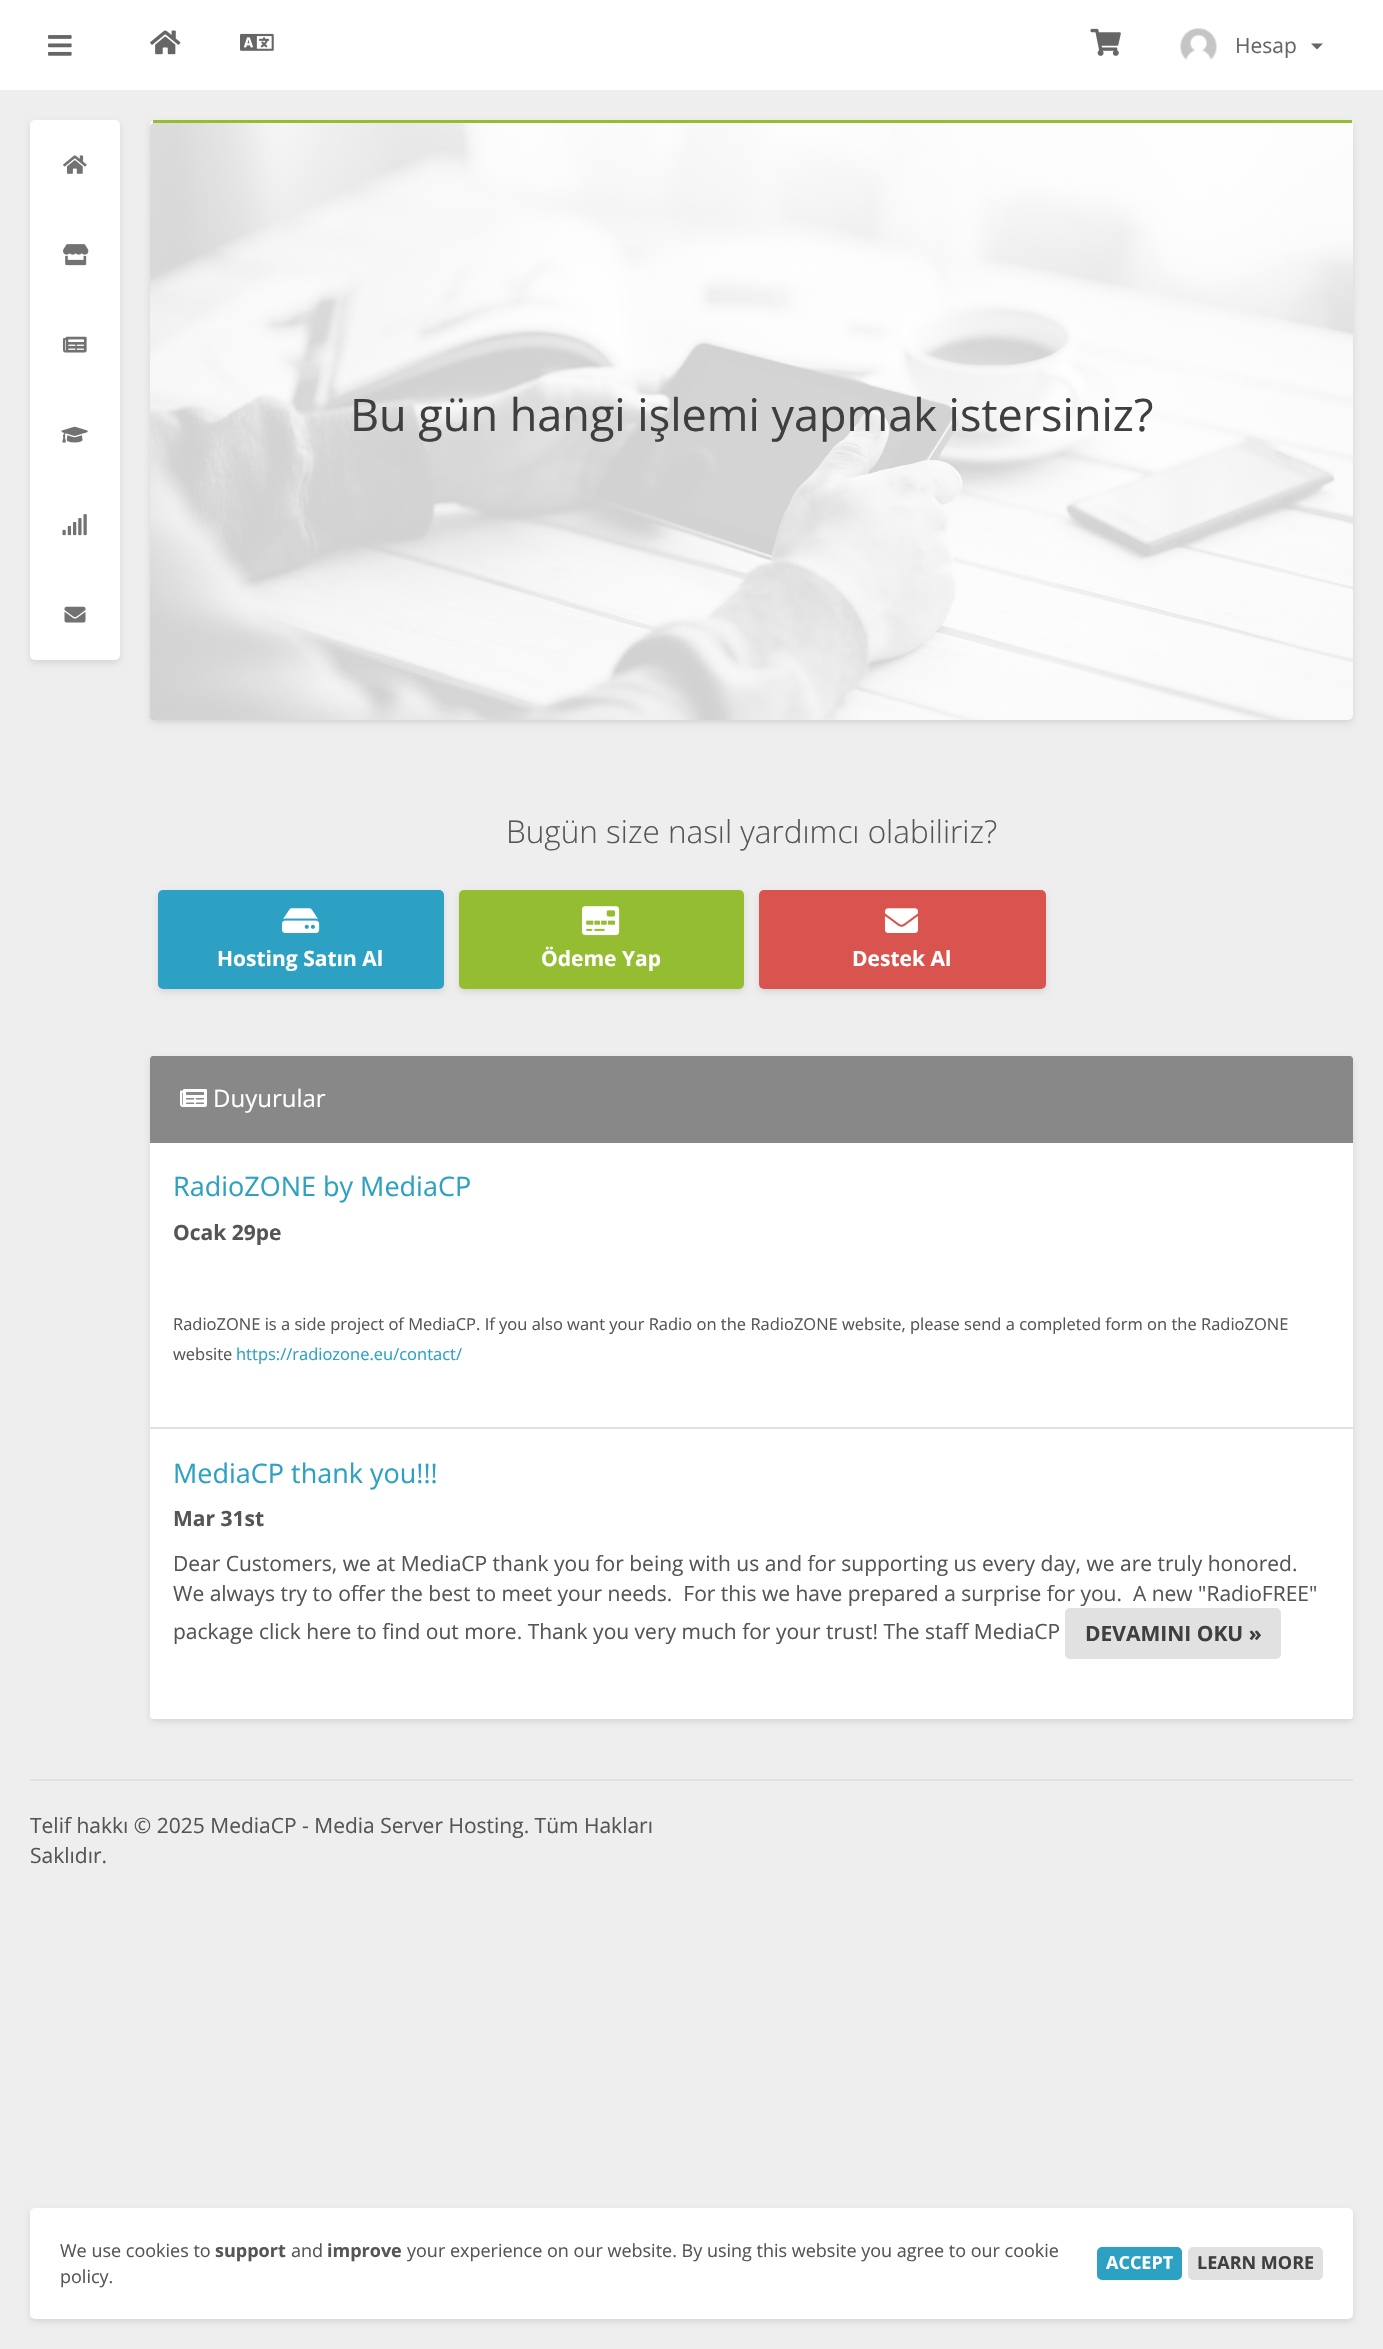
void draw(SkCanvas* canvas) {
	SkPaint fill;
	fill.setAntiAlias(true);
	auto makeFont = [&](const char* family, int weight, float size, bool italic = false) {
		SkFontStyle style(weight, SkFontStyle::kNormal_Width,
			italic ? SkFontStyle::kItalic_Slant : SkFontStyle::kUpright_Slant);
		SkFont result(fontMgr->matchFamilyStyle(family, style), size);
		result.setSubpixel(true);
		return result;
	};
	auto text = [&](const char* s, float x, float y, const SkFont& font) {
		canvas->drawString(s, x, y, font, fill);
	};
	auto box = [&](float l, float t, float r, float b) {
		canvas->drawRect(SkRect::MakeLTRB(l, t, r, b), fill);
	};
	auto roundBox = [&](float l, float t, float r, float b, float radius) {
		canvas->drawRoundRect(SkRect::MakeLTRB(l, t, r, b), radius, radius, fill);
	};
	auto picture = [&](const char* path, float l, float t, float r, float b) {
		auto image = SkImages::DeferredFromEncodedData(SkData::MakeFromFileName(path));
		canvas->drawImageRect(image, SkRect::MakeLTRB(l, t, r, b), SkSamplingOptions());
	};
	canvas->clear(0xFFEEEEEE);
	fill.setColor(0xFFFFFFFF);
	box(0, 0, 1383, 90);
	picture("image0.png", 48, 35, 72, 56);
	picture("image1.png", 150, 30, 181, 55);
	picture("image2.png", 240, 33, 274, 51);
	picture("image3.png", 1090, 28, 1121, 56);
	picture("image4.png", 1180, 28, 1217, 60);
	fill.setColor(0xFF666666);
	canvas->drawPath(SkPathBuilder().moveTo(1311, 43.5f).lineTo(1323, 43.5f).lineTo(1317, 49.5f).close().detach(), fill);
	fill.setColor(0x1A000000);
	fill.setMaskFilter(SkMaskFilter::MakeBlur(kNormal_SkBlurStyle, 3));
	canvas->drawRoundRect(SkRect::MakeLTRB(30, 123, 120, 663), 5, 5, fill);
	fill.setMaskFilter(nullptr);
	fill.setColor(0xFFFFFFFF);
	roundBox(30, 120, 120, 660, 5);
	picture("image5.png", 63, 155, 87, 174);
	picture("image6.png", 63, 244, 89, 266);
	picture("image7.png", 63, 336, 87, 353);
	picture("image8.png", 61, 426, 88, 443);
	picture("image9.png", 62, 514, 87, 536);
	picture("image10.png", 64, 606, 86, 623);
	fill.setColor(0x1A000000);
	fill.setMaskFilter(SkMaskFilter::MakeBlur(kNormal_SkBlurStyle, 3));
	canvas->drawRoundRect(SkRect::MakeLTRB(150, 123, 1353, 723), 5, 5, fill);
	fill.setMaskFilter(nullptr);
	fill.setColor(0xFFFFFFFF);
	roundBox(150, 120, 1353, 720, 5);
	fill.setColor(0xFF94BD31);
	box(153, 120, 1352, 123);
	picture("image11.png", 150, 123, 1353, 720);
	fill.setColor(0x1A000000);
	fill.setMaskFilter(SkMaskFilter::MakeBlur(kNormal_SkBlurStyle, 3));
	canvas->drawRoundRect(SkRect::MakeLTRB(158, 893, 444, 992), 5, 5, fill);
	fill.setMaskFilter(nullptr);
	fill.setColor(0xFF2CA1C3);
	roundBox(158, 890, 444, 989, 5);
	picture("image12.png", 282, 908, 320, 933);
	fill.setColor(0x1A000000);
	fill.setMaskFilter(SkMaskFilter::MakeBlur(kNormal_SkBlurStyle, 3));
	canvas->drawRoundRect(SkRect::MakeLTRB(459, 893, 744, 992), 5, 5, fill);
	fill.setMaskFilter(nullptr);
	fill.setColor(0xFF94BD31);
	roundBox(459, 890, 744, 989, 5);
	picture("image13.png", 582, 906, 620, 936);
	fill.setColor(0x1A000000);
	fill.setMaskFilter(SkMaskFilter::MakeBlur(kNormal_SkBlurStyle, 3));
	canvas->drawRoundRect(SkRect::MakeLTRB(759, 893, 1046, 992), 5, 5, fill);
	fill.setMaskFilter(nullptr);
	fill.setColor(0xFFD9534F);
	roundBox(759, 890, 1046, 989, 5);
	picture("image14.png", 885, 908, 918, 933);
	fill.setColor(0x1A000000);
	fill.setMaskFilter(SkMaskFilter::MakeBlur(kNormal_SkBlurStyle, 3));
	canvas->drawRoundRect(SkRect::MakeLTRB(150, 1059, 1353, 1722), 5, 5, fill);
	fill.setMaskFilter(nullptr);
	fill.setColor(0xFFFFFFFF);
	roundBox(150, 1056, 1353, 1719, 5);
	fill.setColor(0xFF888888);
	canvas->drawPath(SkPathBuilder().moveTo(153, 1056).lineTo(1350, 1056).cubicTo(1351.5f, 1056, 1353, 1057.5f, 1353, 1059).lineTo(1353, 1143).lineTo(150, 1143).lineTo(150, 1059).cubicTo(150, 1057.5f, 151.5f, 1056, 153, 1056).close().detach(), fill);
	picture("image15.png", 180, 1089, 207, 1107);
	fill.setColor(0xFFFFFFFF);
	canvas->drawPath(SkPathBuilder().moveTo(150, 1427).lineTo(1353, 1427).lineTo(1353, 1716).cubicTo(1353, 1717.5f, 1351.5f, 1719, 1350, 1719).lineTo(153, 1719).cubicTo(151.5f, 1719, 150, 1717.5f, 150, 1716).close().detach(), fill);
	fill.setColor(0xFFE1E1E1);
	box(150, 1427, 1353, 1429);
	canvas->drawRoundRect(SkRect::MakeLTRB(1066, 1609, 1280, 1658), 4, 4, fill);
	fill.setStyle(SkPaint::kStroke_Style);
	fill.setStrokeWidth(2);
	canvas->drawRoundRect(SkRect::MakeLTRB(1066, 1609, 1280, 1658), 4, 4, fill);
	fill.setStyle(SkPaint::kFill_Style);
	box(30, 1779, 1353, 1781);
	fill.setColor(0x1A000000);
	fill.setMaskFilter(SkMaskFilter::MakeBlur(kNormal_SkBlurStyle, 3));
	canvas->drawRoundRect(SkRect::MakeLTRB(30, 2211, 1353, 2322), 5, 5, fill);
	fill.setMaskFilter(nullptr);
	fill.setColor(0xFFFFFFFF);
	roundBox(30, 2208, 1353, 2319, 5);
	fill.setColor(0xFF2CA1C3);
	canvas->drawRoundRect(SkRect::MakeLTRB(1098, 2248, 1181, 2279), 4, 4, fill);
	fill.setStyle(SkPaint::kStroke_Style);
	canvas->drawRoundRect(SkRect::MakeLTRB(1098, 2248, 1181, 2279), 4, 4, fill);
	fill.setStyle(SkPaint::kFill_Style);
	fill.setColor(0xFFE1E1E1);
	canvas->drawRoundRect(SkRect::MakeLTRB(1189, 2248, 1322, 2279), 4, 4, fill);
	fill.setStyle(SkPaint::kStroke_Style);
	canvas->drawRoundRect(SkRect::MakeLTRB(1189, 2248, 1322, 2279), 4, 4, fill);
	auto font1 = makeFont("Open Sans", 400, 21);
	fill.setStyle(SkPaint::kFill_Style);
	fill.setColor(0xFF666666);
	text("Hesap", 1235, 53, font1);
	auto font2 = makeFont("Open Sans", 400, 45);
	fill.setColor(0xFF3F3F3F);
	text("Bu gün hangi işlemi yapmak istersiniz?", 350, 431, font2);
	auto font3 = makeFont("Open Sans", 300, 31.5f);
	fill.setColor(0xFF555555);
	text("Bugün size nasıl yardımcı olabiliriz?", 506, 843, font3);
	auto font4 = makeFont("Open Sans", 700, 21);
	fill.setColor(0xFFFFFFFF);
	text("Hosting Satın Al", 217, 966, font4);
	text("Ödeme Yap", 541, 966, font4);
	text("Destek Al", 852, 966, font4);
	auto font5 = makeFont("Open Sans", 400, 24);
	text("Duyurular", 213, 1107, font5);
	auto font6 = makeFont("Open Sans", 400, 27);
	fill.setColor(0xFF2CA1C3);
	text("RadioZONE by MediaCP", 173, 1196, font6);
	fill.setColor(0xFF555555);
	text("Ocak 29pe", 173, 1240, font4);
	auto font7 = makeFont("Open Sans", 400, 16.5f);
	text("RadioZONE is a side project of MediaCP. If you also want your Radio on the RadioZONE website, please send a completed form on the RadioZONE", 173, 1330, font7);
	text("website", 173, 1360, font7);
	fill.setColor(0xFF2CA1C3);
	text("https://radiozone.eu/contact/", 236, 1360, font7);
	text("MediaCP thank you!!!", 173, 1483, font6);
	fill.setColor(0xFF555555);
	text("Mar 31st", 173, 1526, font4);
	text("Dear Customers, we at MediaCP thank you for being with us and for supporting us every day, we are truly honored.", 173, 1571, font1);
	text("We always try to offer the best to meet your needs.  For this we have prepared a surprise for you.  A new \"RadioFREE\"", 173, 1601, font1);
	text("package click here to find out more. Thank you very much for your trust! The staff MediaCP", 173, 1639, font1);
	fill.setColor(0xFF3F3F3F);
	text("DEVAMINI OKU »", 1085, 1641, font4);
	fill.setColor(0xFF555555);
	text("Telif hakkı © 2025 MediaCP - Media Server Hosting. Tüm Hakları", 30, 1833, font1);
	text("Saklıdır.", 30, 1863, font1);
	auto font8 = makeFont("Open Sans", 400, 18);
	text("We use cookies to", 60, 2257, font8);
	auto font9 = makeFont("Open Sans", 700, 18);
	text("support", 215, 2257, font9);
	text("and", 291, 2257, font8);
	text("improve", 327, 2257, font9);
	text("your experience on our website. By using this website you agree to our cookie", 407, 2257, font8);
	text("policy.", 60, 2283, font8);
	fill.setColor(0xFFFFFFFF);
	text("ACCEPT", 1106, 2269, font9);
	fill.setColor(0xFF3F3F3F);
	text("LEARN MORE", 1197, 2269, font9);
}
